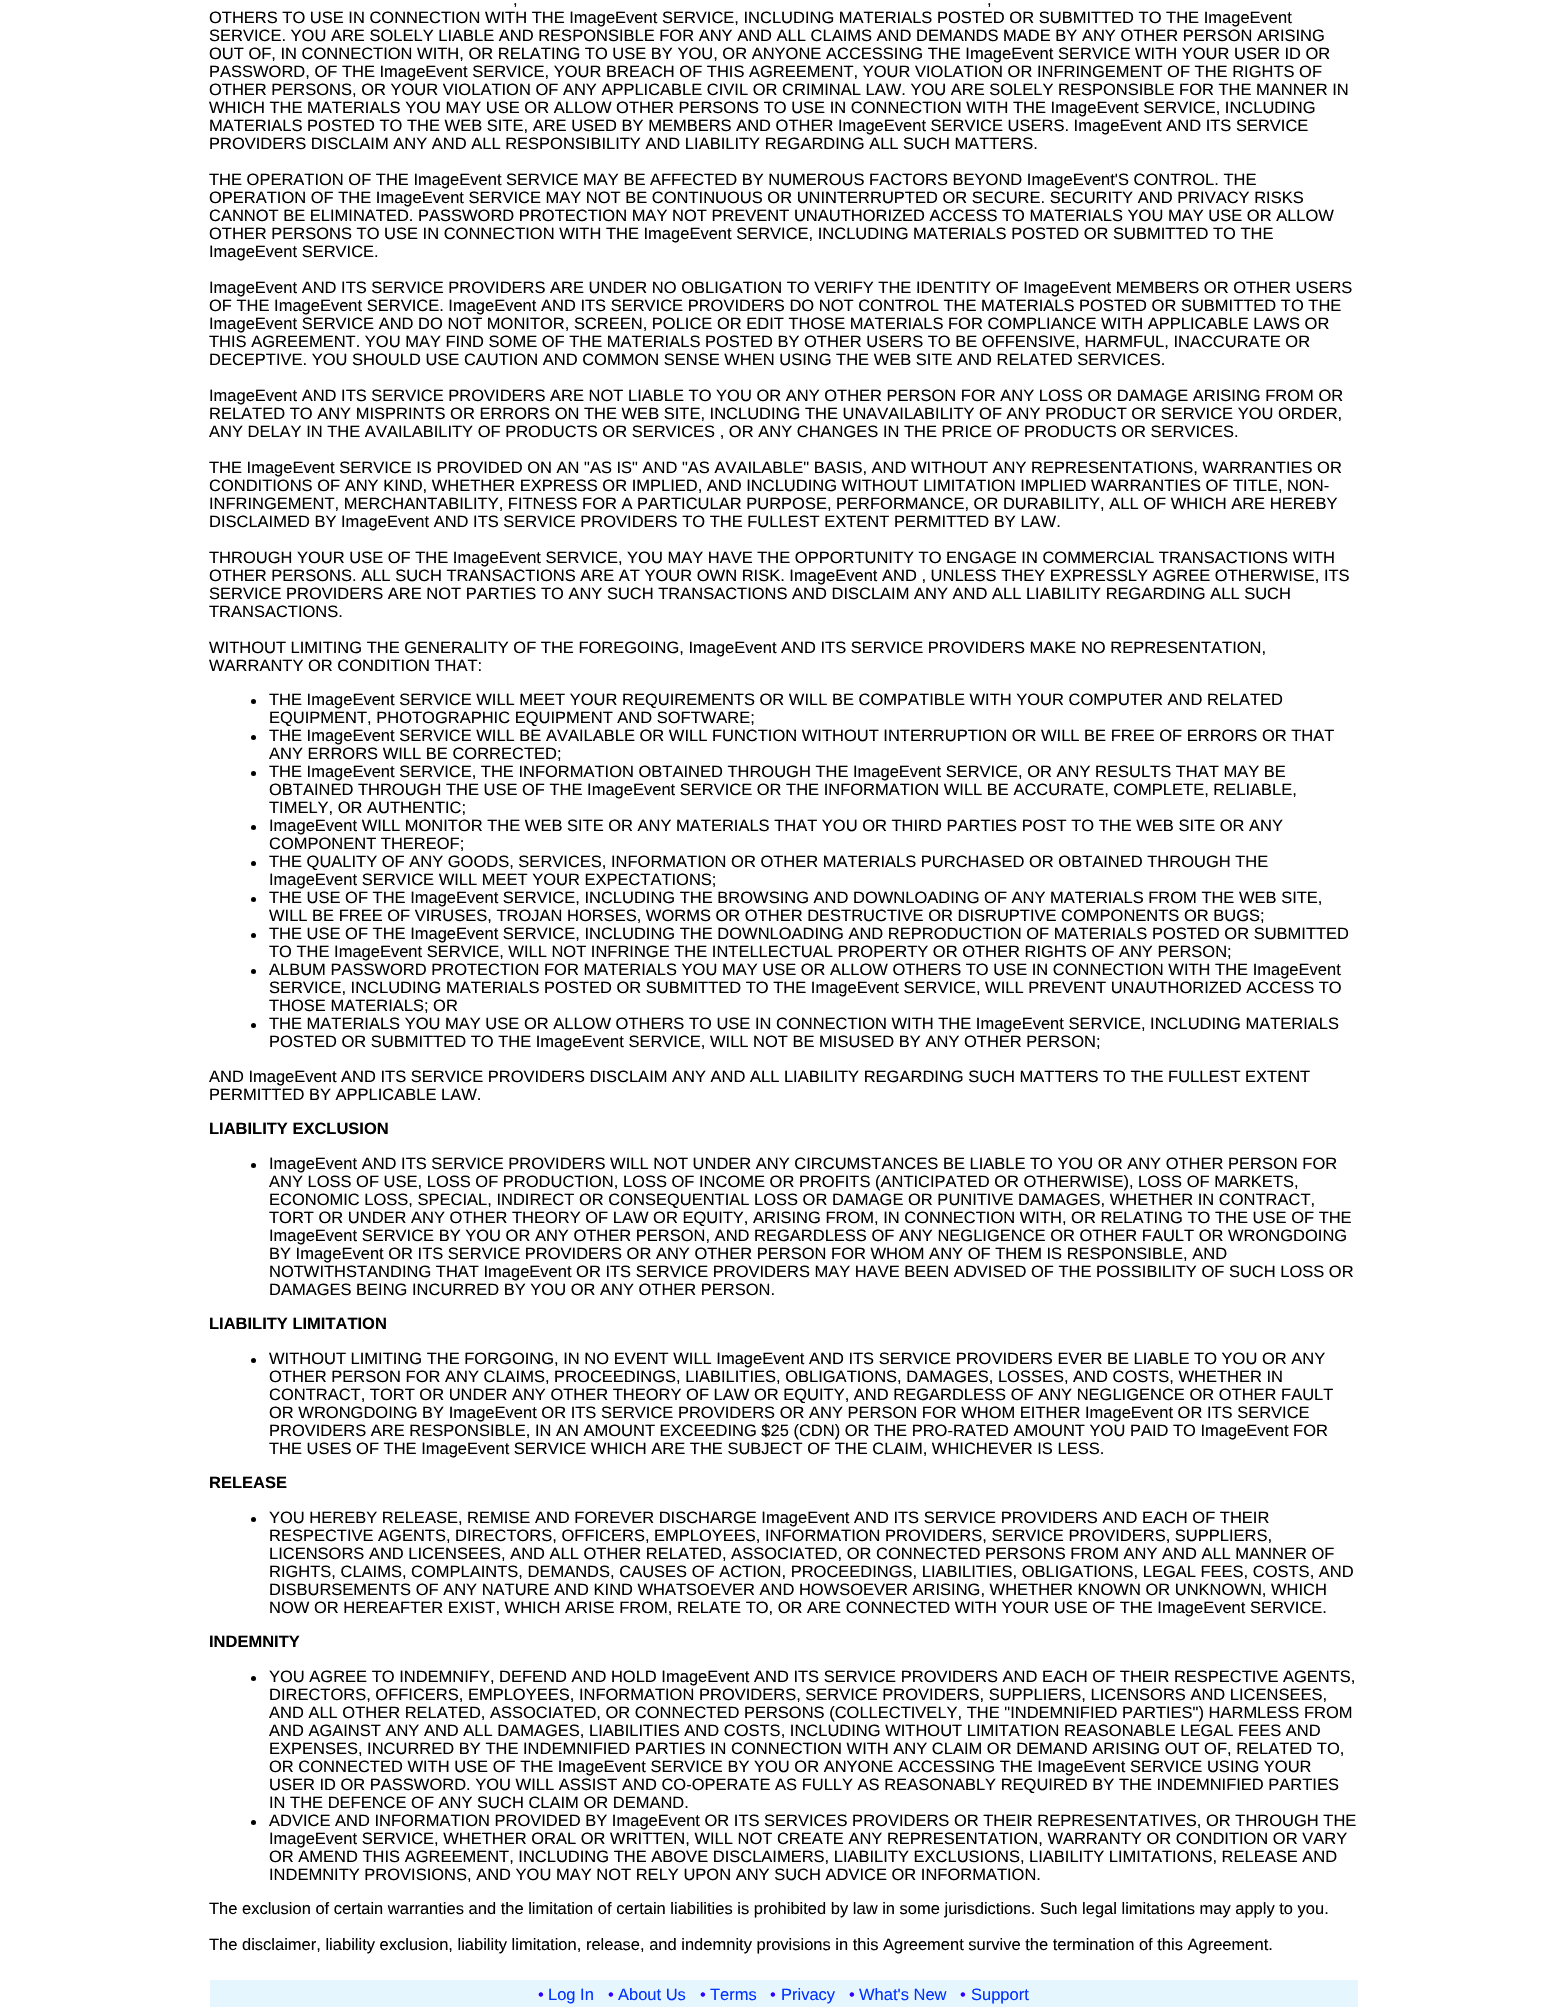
void draw(SkCanvas* canvas) {
	SkPaint fill;
	fill.setAntiAlias(true);
	auto makeFont = [&](const char* family, int weight, float size, bool italic = false) {
		SkFontStyle style(weight, SkFontStyle::kNormal_Width,
			italic ? SkFontStyle::kItalic_Slant : SkFontStyle::kUpright_Slant);
		SkFont result(fontMgr->matchFamilyStyle(family, style), size);
		result.setSubpixel(true);
		return result;
	};
	auto text = [&](const char* s, float x, float y, const SkFont& font) {
		canvas->drawString(s, x, y, font, fill);
	};
	auto box = [&](float l, float t, float r, float b) {
		canvas->drawRect(SkRect::MakeLTRB(l, t, r, b), fill);
	};
	canvas->clear(0xFFFFFFFF);
	fill.setColor(0xFF000000);
	canvas->drawCircle(253.5f, 701.5f, 2.5f, fill);
	canvas->drawCircle(253.5f, 737.5f, 2.5f, fill);
	canvas->drawCircle(253.5f, 773.5f, 2.5f, fill);
	canvas->drawCircle(253.5f, 827.5f, 2.5f, fill);
	canvas->drawCircle(253.5f, 863.5f, 2.5f, fill);
	canvas->drawCircle(253.5f, 899.5f, 2.5f, fill);
	canvas->drawCircle(253.5f, 935.5f, 2.5f, fill);
	canvas->drawCircle(253.5f, 971.5f, 2.5f, fill);
	canvas->drawCircle(253.5f, 1025.5f, 2.5f, fill);
	canvas->drawCircle(253.5f, 1165.5f, 2.5f, fill);
	canvas->drawCircle(253.5f, 1360.5f, 2.5f, fill);
	canvas->drawCircle(253.5f, 1519.5f, 2.5f, fill);
	canvas->drawCircle(253.5f, 1678.5f, 2.5f, fill);
	canvas->drawCircle(253.5f, 1822.5f, 2.5f, fill);
	fill.setColor(0xFFE5F6FF);
	box(210, 1980, 1358, 2007);
	auto font1 = makeFont("Liberation Sans", 400, 16.5f);
	fill.setColor(0xFF000000);
	text(",", 513, 5, font1);
	text(",", 987, 5, font1);
	text("OTHERS TO USE IN CONNECTION WITH THE ImageEvent SERVICE, INCLUDING MATERIALS POSTED OR SUBMITTED TO THE ImageEvent", 209, 23, font1);
	text("SERVICE. YOU ARE SOLELY LIABLE AND RESPONSIBLE FOR ANY AND ALL CLAIMS AND DEMANDS MADE BY ANY OTHER PERSON ARISING", 209, 41, font1);
	text("OUT OF, IN CONNECTION WITH, OR RELATING TO USE BY YOU, OR ANYONE ACCESSING THE ImageEvent SERVICE WITH YOUR USER ID OR", 209, 59, font1);
	text("PASSWORD, OF THE ImageEvent SERVICE, YOUR BREACH OF THIS AGREEMENT, YOUR VIOLATION OR INFRINGEMENT OF THE RIGHTS OF", 209, 77, font1);
	text("OTHER PERSONS, OR YOUR VIOLATION OF ANY APPLICABLE CIVIL OR CRIMINAL LAW. YOU ARE SOLELY RESPONSIBLE FOR THE MANNER IN", 209, 95, font1);
	text("WHICH THE MATERIALS YOU MAY USE OR ALLOW OTHER PERSONS TO USE IN CONNECTION WITH THE ImageEvent SERVICE, INCLUDING", 209, 113, font1);
	text("MATERIALS POSTED TO THE WEB SITE, ARE USED BY MEMBERS AND OTHER ImageEvent SERVICE USERS. ImageEvent AND ITS SERVICE", 209, 131, font1);
	text("PROVIDERS DISCLAIM ANY AND ALL RESPONSIBILITY AND LIABILITY REGARDING ALL SUCH MATTERS.", 209, 149, font1);
	text("THE OPERATION OF THE ImageEvent SERVICE MAY BE AFFECTED BY NUMEROUS FACTORS BEYOND ImageEvent'S CONTROL. THE", 209, 185, font1);
	text("OPERATION OF THE ImageEvent SERVICE MAY NOT BE CONTINUOUS OR UNINTERRUPTED OR SECURE. SECURITY AND PRIVACY RISKS", 209, 203, font1);
	text("CANNOT BE ELIMINATED. PASSWORD PROTECTION MAY NOT PREVENT UNAUTHORIZED ACCESS TO MATERIALS YOU MAY USE OR ALLOW", 209, 221, font1);
	text("OTHER PERSONS TO USE IN CONNECTION WITH THE ImageEvent SERVICE, INCLUDING MATERIALS POSTED OR SUBMITTED TO THE", 209, 239, font1);
	text("ImageEvent SERVICE.", 209, 257, font1);
	text("ImageEvent AND ITS SERVICE PROVIDERS ARE UNDER NO OBLIGATION TO VERIFY THE IDENTITY OF ImageEvent MEMBERS OR OTHER USERS", 209, 293, font1);
	text("OF THE ImageEvent SERVICE. ImageEvent AND ITS SERVICE PROVIDERS DO NOT CONTROL THE MATERIALS POSTED OR SUBMITTED TO THE", 209, 311, font1);
	text("ImageEvent SERVICE AND DO NOT MONITOR, SCREEN, POLICE OR EDIT THOSE MATERIALS FOR COMPLIANCE WITH APPLICABLE LAWS OR", 209, 329, font1);
	text("THIS AGREEMENT. YOU MAY FIND SOME OF THE MATERIALS POSTED BY OTHER USERS TO BE OFFENSIVE, HARMFUL, INACCURATE OR", 209, 347, font1);
	text("DECEPTIVE. YOU SHOULD USE CAUTION AND COMMON SENSE WHEN USING THE WEB SITE AND RELATED SERVICES.", 209, 365, font1);
	text("ImageEvent AND ITS SERVICE PROVIDERS ARE NOT LIABLE TO YOU OR ANY OTHER PERSON FOR ANY LOSS OR DAMAGE ARISING FROM OR", 209, 401, font1);
	text("RELATED TO ANY MISPRINTS OR ERRORS ON THE WEB SITE, INCLUDING THE UNAVAILABILITY OF ANY PRODUCT OR SERVICE YOU ORDER,", 209, 419, font1);
	text("ANY DELAY IN THE AVAILABILITY OF PRODUCTS OR SERVICES , OR ANY CHANGES IN THE PRICE OF PRODUCTS OR SERVICES.", 209, 437, font1);
	text("THE ImageEvent SERVICE IS PROVIDED ON AN \"AS IS\" AND \"AS AVAILABLE\" BASIS, AND WITHOUT ANY REPRESENTATIONS, WARRANTIES OR", 209, 473, font1);
	text("CONDITIONS OF ANY KIND, WHETHER EXPRESS OR IMPLIED, AND INCLUDING WITHOUT LIMITATION IMPLIED WARRANTIES OF TITLE, NON-", 209, 491, font1);
	text("INFRINGEMENT, MERCHANTABILITY, FITNESS FOR A PARTICULAR PURPOSE, PERFORMANCE, OR DURABILITY, ALL OF WHICH ARE HEREBY", 209, 509, font1);
	text("DISCLAIMED BY ImageEvent AND ITS SERVICE PROVIDERS TO THE FULLEST EXTENT PERMITTED BY LAW.", 209, 527, font1);
	text("THROUGH YOUR USE OF THE ImageEvent SERVICE, YOU MAY HAVE THE OPPORTUNITY TO ENGAGE IN COMMERCIAL TRANSACTIONS WITH", 209, 563, font1);
	text("OTHER PERSONS. ALL SUCH TRANSACTIONS ARE AT YOUR OWN RISK. ImageEvent AND , UNLESS THEY EXPRESSLY AGREE OTHERWISE, ITS", 209, 581, font1);
	text("SERVICE PROVIDERS ARE NOT PARTIES TO ANY SUCH TRANSACTIONS AND DISCLAIM ANY AND ALL LIABILITY REGARDING ALL SUCH", 209, 599, font1);
	text("TRANSACTIONS.", 209, 617, font1);
	text("WITHOUT LIMITING THE GENERALITY OF THE FOREGOING, ImageEvent AND ITS SERVICE PROVIDERS MAKE NO REPRESENTATION,", 209, 653, font1);
	text("WARRANTY OR CONDITION THAT:", 209, 671, font1);
	text("THE ImageEvent SERVICE WILL MEET YOUR REQUIREMENTS OR WILL BE COMPATIBLE WITH YOUR COMPUTER AND RELATED", 269, 705, font1);
	text("EQUIPMENT, PHOTOGRAPHIC EQUIPMENT AND SOFTWARE;", 269, 723, font1);
	text("THE ImageEvent SERVICE WILL BE AVAILABLE OR WILL FUNCTION WITHOUT INTERRUPTION OR WILL BE FREE OF ERRORS OR THAT", 269, 741, font1);
	text("ANY ERRORS WILL BE CORRECTED;", 269, 759, font1);
	text("THE ImageEvent SERVICE, THE INFORMATION OBTAINED THROUGH THE ImageEvent SERVICE, OR ANY RESULTS THAT MAY BE", 269, 777, font1);
	text("OBTAINED THROUGH THE USE OF THE ImageEvent SERVICE OR THE INFORMATION WILL BE ACCURATE, COMPLETE, RELIABLE,", 269, 795, font1);
	text("TIMELY, OR AUTHENTIC;", 269, 813, font1);
	text("ImageEvent WILL MONITOR THE WEB SITE OR ANY MATERIALS THAT YOU OR THIRD PARTIES POST TO THE WEB SITE OR ANY", 269, 831, font1);
	text("COMPONENT THEREOF;", 269, 849, font1);
	text("THE QUALITY OF ANY GOODS, SERVICES, INFORMATION OR OTHER MATERIALS PURCHASED OR OBTAINED THROUGH THE", 269, 867, font1);
	text("ImageEvent SERVICE WILL MEET YOUR EXPECTATIONS;", 269, 885, font1);
	text("THE USE OF THE ImageEvent SERVICE, INCLUDING THE BROWSING AND DOWNLOADING OF ANY MATERIALS FROM THE WEB SITE,", 269, 903, font1);
	text("WILL BE FREE OF VIRUSES, TROJAN HORSES, WORMS OR OTHER DESTRUCTIVE OR DISRUPTIVE COMPONENTS OR BUGS;", 269, 921, font1);
	text("THE USE OF THE ImageEvent SERVICE, INCLUDING THE DOWNLOADING AND REPRODUCTION OF MATERIALS POSTED OR SUBMITTED", 269, 939, font1);
	text("TO THE ImageEvent SERVICE, WILL NOT INFRINGE THE INTELLECTUAL PROPERTY OR OTHER RIGHTS OF ANY PERSON;", 269, 957, font1);
	text("ALBUM PASSWORD PROTECTION FOR MATERIALS YOU MAY USE OR ALLOW OTHERS TO USE IN CONNECTION WITH THE ImageEvent", 269, 975, font1);
	text("SERVICE, INCLUDING MATERIALS POSTED OR SUBMITTED TO THE ImageEvent SERVICE, WILL PREVENT UNAUTHORIZED ACCESS TO", 269, 993, font1);
	text("THOSE MATERIALS; OR", 269, 1011, font1);
	text("THE MATERIALS YOU MAY USE OR ALLOW OTHERS TO USE IN CONNECTION WITH THE ImageEvent SERVICE, INCLUDING MATERIALS", 269, 1029, font1);
	text("POSTED OR SUBMITTED TO THE ImageEvent SERVICE, WILL NOT BE MISUSED BY ANY OTHER PERSON;", 269, 1047, font1);
	text("AND ImageEvent AND ITS SERVICE PROVIDERS DISCLAIM ANY AND ALL LIABILITY REGARDING SUCH MATTERS TO THE FULLEST EXTENT", 209, 1082, font1);
	text("PERMITTED BY APPLICABLE LAW.", 209, 1100, font1);
	auto font2 = makeFont("Liberation Sans", 700, 16.5f);
	text("LIABILITY EXCLUSION", 209, 1134, font2);
	text("ImageEvent AND ITS SERVICE PROVIDERS WILL NOT UNDER ANY CIRCUMSTANCES BE LIABLE TO YOU OR ANY OTHER PERSON FOR", 269, 1169, font1);
	text("ANY LOSS OF USE, LOSS OF PRODUCTION, LOSS OF INCOME OR PROFITS (ANTICIPATED OR OTHERWISE), LOSS OF MARKETS,", 269, 1187, font1);
	text("ECONOMIC LOSS, SPECIAL, INDIRECT OR CONSEQUENTIAL LOSS OR DAMAGE OR PUNITIVE DAMAGES, WHETHER IN CONTRACT,", 269, 1205, font1);
	text("TORT OR UNDER ANY OTHER THEORY OF LAW OR EQUITY, ARISING FROM, IN CONNECTION WITH, OR RELATING TO THE USE OF THE", 269, 1223, font1);
	text("ImageEvent SERVICE BY YOU OR ANY OTHER PERSON, AND REGARDLESS OF ANY NEGLIGENCE OR OTHER FAULT OR WRONGDOING", 269, 1241, font1);
	text("BY ImageEvent OR ITS SERVICE PROVIDERS OR ANY OTHER PERSON FOR WHOM ANY OF THEM IS RESPONSIBLE, AND", 269, 1259, font1);
	text("NOTWITHSTANDING THAT ImageEvent OR ITS SERVICE PROVIDERS MAY HAVE BEEN ADVISED OF THE POSSIBILITY OF SUCH LOSS OR", 269, 1277, font1);
	text("DAMAGES BEING INCURRED BY YOU OR ANY OTHER PERSON.", 269, 1295, font1);
	text("LIABILITY LIMITATION", 209, 1329, font2);
	text("WITHOUT LIMITING THE FORGOING, IN NO EVENT WILL ImageEvent AND ITS SERVICE PROVIDERS EVER BE LIABLE TO YOU OR ANY", 269, 1364, font1);
	text("OTHER PERSON FOR ANY CLAIMS, PROCEEDINGS, LIABILITIES, OBLIGATIONS, DAMAGES, LOSSES, AND COSTS, WHETHER IN", 269, 1382, font1);
	text("CONTRACT, TORT OR UNDER ANY OTHER THEORY OF LAW OR EQUITY, AND REGARDLESS OF ANY NEGLIGENCE OR OTHER FAULT", 269, 1400, font1);
	text("OR WRONGDOING BY ImageEvent OR ITS SERVICE PROVIDERS OR ANY PERSON FOR WHOM EITHER ImageEvent OR ITS SERVICE", 269, 1418, font1);
	text("PROVIDERS ARE RESPONSIBLE, IN AN AMOUNT EXCEEDING $25 (CDN) OR THE PRO-RATED AMOUNT YOU PAID TO ImageEvent FOR", 269, 1436, font1);
	text("THE USES OF THE ImageEvent SERVICE WHICH ARE THE SUBJECT OF THE CLAIM, WHICHEVER IS LESS.", 269, 1454, font1);
	text("RELEASE", 209, 1488, font2);
	text("YOU HEREBY RELEASE, REMISE AND FOREVER DISCHARGE ImageEvent AND ITS SERVICE PROVIDERS AND EACH OF THEIR", 269, 1523, font1);
	text("RESPECTIVE AGENTS, DIRECTORS, OFFICERS, EMPLOYEES, INFORMATION PROVIDERS, SERVICE PROVIDERS, SUPPLIERS,", 269, 1541, font1);
	text("LICENSORS AND LICENSEES, AND ALL OTHER RELATED, ASSOCIATED, OR CONNECTED PERSONS FROM ANY AND ALL MANNER OF", 269, 1559, font1);
	text("RIGHTS, CLAIMS, COMPLAINTS, DEMANDS, CAUSES OF ACTION, PROCEEDINGS, LIABILITIES, OBLIGATIONS, LEGAL FEES, COSTS, AND", 269, 1577, font1);
	text("DISBURSEMENTS OF ANY NATURE AND KIND WHATSOEVER AND HOWSOEVER ARISING, WHETHER KNOWN OR UNKNOWN, WHICH", 269, 1595, font1);
	text("NOW OR HEREAFTER EXIST, WHICH ARISE FROM, RELATE TO, OR ARE CONNECTED WITH YOUR USE OF THE ImageEvent SERVICE.", 269, 1613, font1);
	text("INDEMNITY", 209, 1647, font2);
	text("YOU AGREE TO INDEMNIFY, DEFEND AND HOLD ImageEvent AND ITS SERVICE PROVIDERS AND EACH OF THEIR RESPECTIVE AGENTS,", 269, 1682, font1);
	text("DIRECTORS, OFFICERS, EMPLOYEES, INFORMATION PROVIDERS, SERVICE PROVIDERS, SUPPLIERS, LICENSORS AND LICENSEES,", 269, 1700, font1);
	text("AND ALL OTHER RELATED, ASSOCIATED, OR CONNECTED PERSONS (COLLECTIVELY, THE \"INDEMNIFIED PARTIES\") HARMLESS FROM", 269, 1718, font1);
	text("AND AGAINST ANY AND ALL DAMAGES, LIABILITIES AND COSTS, INCLUDING WITHOUT LIMITATION REASONABLE LEGAL FEES AND", 269, 1736, font1);
	text("EXPENSES, INCURRED BY THE INDEMNIFIED PARTIES IN CONNECTION WITH ANY CLAIM OR DEMAND ARISING OUT OF, RELATED TO,", 269, 1754, font1);
	text("OR CONNECTED WITH USE OF THE ImageEvent SERVICE BY YOU OR ANYONE ACCESSING THE ImageEvent SERVICE USING YOUR", 269, 1772, font1);
	text("USER ID OR PASSWORD. YOU WILL ASSIST AND CO-OPERATE AS FULLY AS REASONABLY REQUIRED BY THE INDEMNIFIED PARTIES", 269, 1790, font1);
	text("IN THE DEFENCE OF ANY SUCH CLAIM OR DEMAND.", 269, 1808, font1);
	text("ADVICE AND INFORMATION PROVIDED BY ImageEvent OR ITS SERVICES PROVIDERS OR THEIR REPRESENTATIVES, OR THROUGH THE", 269, 1826, font1);
	text("ImageEvent SERVICE, WHETHER ORAL OR WRITTEN, WILL NOT CREATE ANY REPRESENTATION, WARRANTY OR CONDITION OR VARY", 269, 1844, font1);
	text("OR AMEND THIS AGREEMENT, INCLUDING THE ABOVE DISCLAIMERS, LIABILITY EXCLUSIONS, LIABILITY LIMITATIONS, RELEASE AND", 269, 1862, font1);
	text("INDEMNITY PROVISIONS, AND YOU MAY NOT RELY UPON ANY SUCH ADVICE OR INFORMATION.", 269, 1880, font1);
	text("The exclusion of certain warranties and the limitation of certain liabilities is prohibited by law in some jurisdictions. Such legal limitations may apply to you.", 209, 1914, font1);
	text("The disclaimer, liability exclusion, liability limitation, release, and indemnity provisions in this Agreement survive the termination of this Agreement.", 209, 1950, font1);
	fill.setColor(0xFF3300FF);
	text("•", 538, 2000, font1);
	fill.setColor(0xFF0033FF);
	text("Log In", 548, 2000, font1);
	fill.setColor(0xFF3300FF);
	text("•", 608, 2000, font1);
	fill.setColor(0xFF0033FF);
	text("About Us", 618, 2000, font1);
	fill.setColor(0xFF3300FF);
	text("•", 700, 2000, font1);
	fill.setColor(0xFF0033FF);
	text("Terms", 710, 2000, font1);
	fill.setColor(0xFF3300FF);
	text("•", 770, 2000, font1);
	fill.setColor(0xFF0033FF);
	text("Privacy", 781, 2000, font1);
	fill.setColor(0xFF3300FF);
	text("•", 849, 2000, font1);
	fill.setColor(0xFF0033FF);
	text("What's New", 859, 2000, font1);
	fill.setColor(0xFF3300FF);
	text("•", 960, 2000, font1);
	fill.setColor(0xFF0033FF);
	text("Support", 971, 2000, font1);
}
